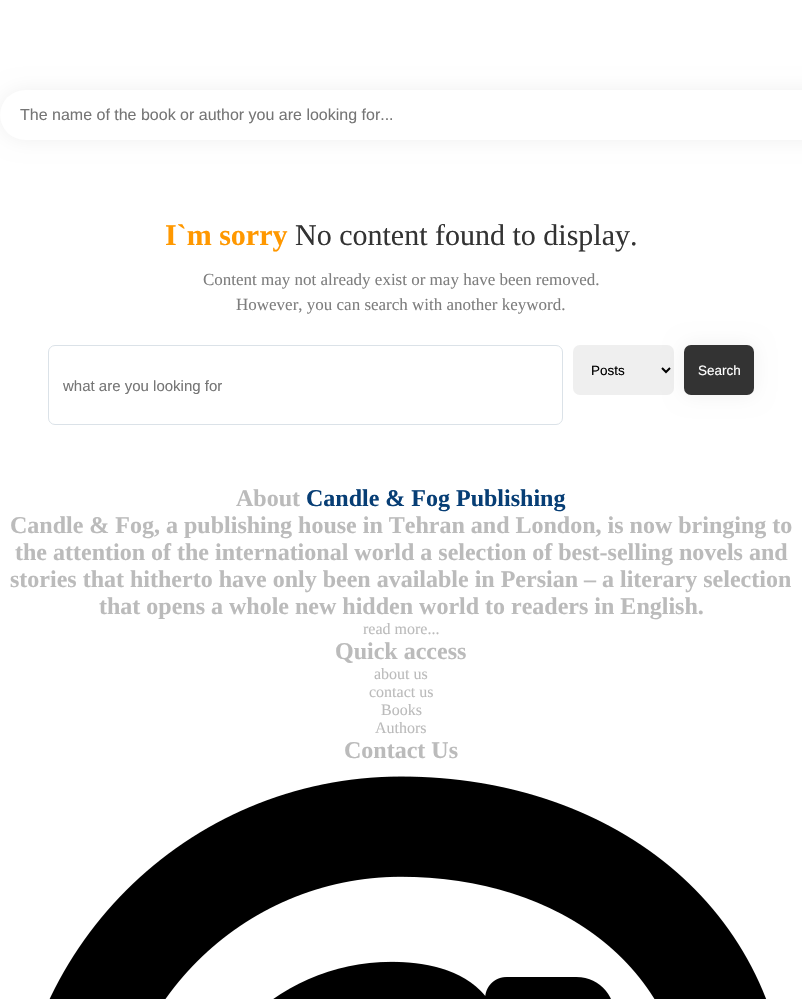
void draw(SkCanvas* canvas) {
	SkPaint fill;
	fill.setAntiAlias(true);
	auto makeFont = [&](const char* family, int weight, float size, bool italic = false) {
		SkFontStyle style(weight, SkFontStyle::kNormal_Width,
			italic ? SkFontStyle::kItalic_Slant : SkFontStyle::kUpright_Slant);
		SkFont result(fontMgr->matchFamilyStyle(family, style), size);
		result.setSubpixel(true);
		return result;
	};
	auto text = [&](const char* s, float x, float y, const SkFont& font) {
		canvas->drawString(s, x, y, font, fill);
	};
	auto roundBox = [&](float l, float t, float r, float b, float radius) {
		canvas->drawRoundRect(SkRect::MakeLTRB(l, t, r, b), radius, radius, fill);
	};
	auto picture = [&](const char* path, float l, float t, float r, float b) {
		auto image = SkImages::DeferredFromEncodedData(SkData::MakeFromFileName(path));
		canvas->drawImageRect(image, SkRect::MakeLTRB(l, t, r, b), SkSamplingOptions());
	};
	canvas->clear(0xFFFFFFFF);
	fill.setColor(0x0F000000);
	fill.setMaskFilter(SkMaskFilter::MakeBlur(kNormal_SkBlurStyle, 10));
	canvas->drawRoundRect(SkRect::MakeLTRB(0, 90, 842, 140), 25, 25, fill);
	fill.setMaskFilter(nullptr);
	fill.setColor(0xFFFFFFFF);
	roundBox(0, 90, 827, 140, 25);
	fill.setColor(0xFFEFEFEF);
	roundBox(573, 345, 674, 395, 7);
	fill.setStyle(SkPaint::kStroke_Style);
	fill.setStrokeWidth(2);
	fill.setColor(0xFF000000);
	canvas->drawPath(SkPathBuilder().moveTo(662, 368).lineTo(666, 372).lineTo(670, 368).detach(), fill);
	fill.setStyle(SkPaint::kFill_Style);
	fill.setColor(0x0F000000);
	fill.setMaskFilter(SkMaskFilter::MakeBlur(kNormal_SkBlurStyle, 10));
	canvas->drawRoundRect(SkRect::MakeLTRB(684, 345, 754, 395), 7, 7, fill);
	fill.setMaskFilter(nullptr);
	fill.setColor(0xFF333333);
	roundBox(684, 345, 754, 395, 7);
	fill.setStyle(SkPaint::kStroke_Style);
	fill.setStrokeWidth(1);
	fill.setColor(0xFFDBE2E8);
	canvas->drawRoundRect(SkRect::MakeLTRB(48.5f, 345.5f, 562.5f, 424.5f), 6.5f, 6.5f, fill);
	picture("image0.png", 49, 776, 767, 999);
	auto font1 = makeFont("Liberation Sans", 400, 16);
	fill.setStyle(SkPaint::kFill_Style);
	fill.setColor(0xFF757575);
	text("The name of the book or author you are looking for...", 20, 120, font1);
	auto font2 = makeFont("Liberation Serif", 700, 30);
	fill.setColor(0xFFFF9800);
	text("I`m sorry", 165, 245, font2);
	auto font3 = makeFont("Liberation Serif", 400, 30);
	fill.setColor(0xFF333333);
	text("No content found to display.", 295, 245, font3);
	auto font4 = makeFont("Liberation Serif", 400, 17);
	fill.setColor(0xFF7E7E7E);
	text("Content may not already exist or may have been removed.", 203, 285, font4);
	text("However, you can search with another keyword.", 236, 310, font4);
	auto font5 = makeFont("Liberation Sans", 400, 13.5f);
	fill.setColor(0xFF000000);
	text("Posts", 591, 375, font5);
	fill.setColor(0xFFFFFFFF);
	text("Search", 698, 375, font5);
	auto font6 = makeFont("Liberation Sans", 400, 15);
	fill.setColor(0xFF757575);
	text("what are you looking for", 63, 391, font6);
	auto font7 = makeFont("Liberation Serif", 700, 24);
	fill.setColor(0xFFBBBBBB);
	text("About", 236, 506, font7);
	fill.setColor(0xFF073E75);
	text("Candle & Fog Publishing", 306, 506, font7);
	fill.setColor(0xFFBBBBBB);
	text("Candle & Fog, a publishing house in Tehran and London, is now bringing to", 10, 533, font7);
	text("the attention of the international world a selection of best-selling novels and", 15, 560, font7);
	text("stories that hitherto have only been available in Persian – a literary selection", 10, 587, font7);
	text("that opens a whole new hidden world to readers in English.", 99, 614, font7);
	auto font8 = makeFont("Liberation Serif", 400, 16);
	text("read more...", 363, 634, font8);
	text("Quick access", 335, 659, font7);
	text("about us", 374, 679, font8);
	text("contact us", 369, 697, font8);
	text("Books", 381, 715, font8);
	text("Authors", 375, 733, font8);
	text("Contact Us", 344, 758, font7);
}
